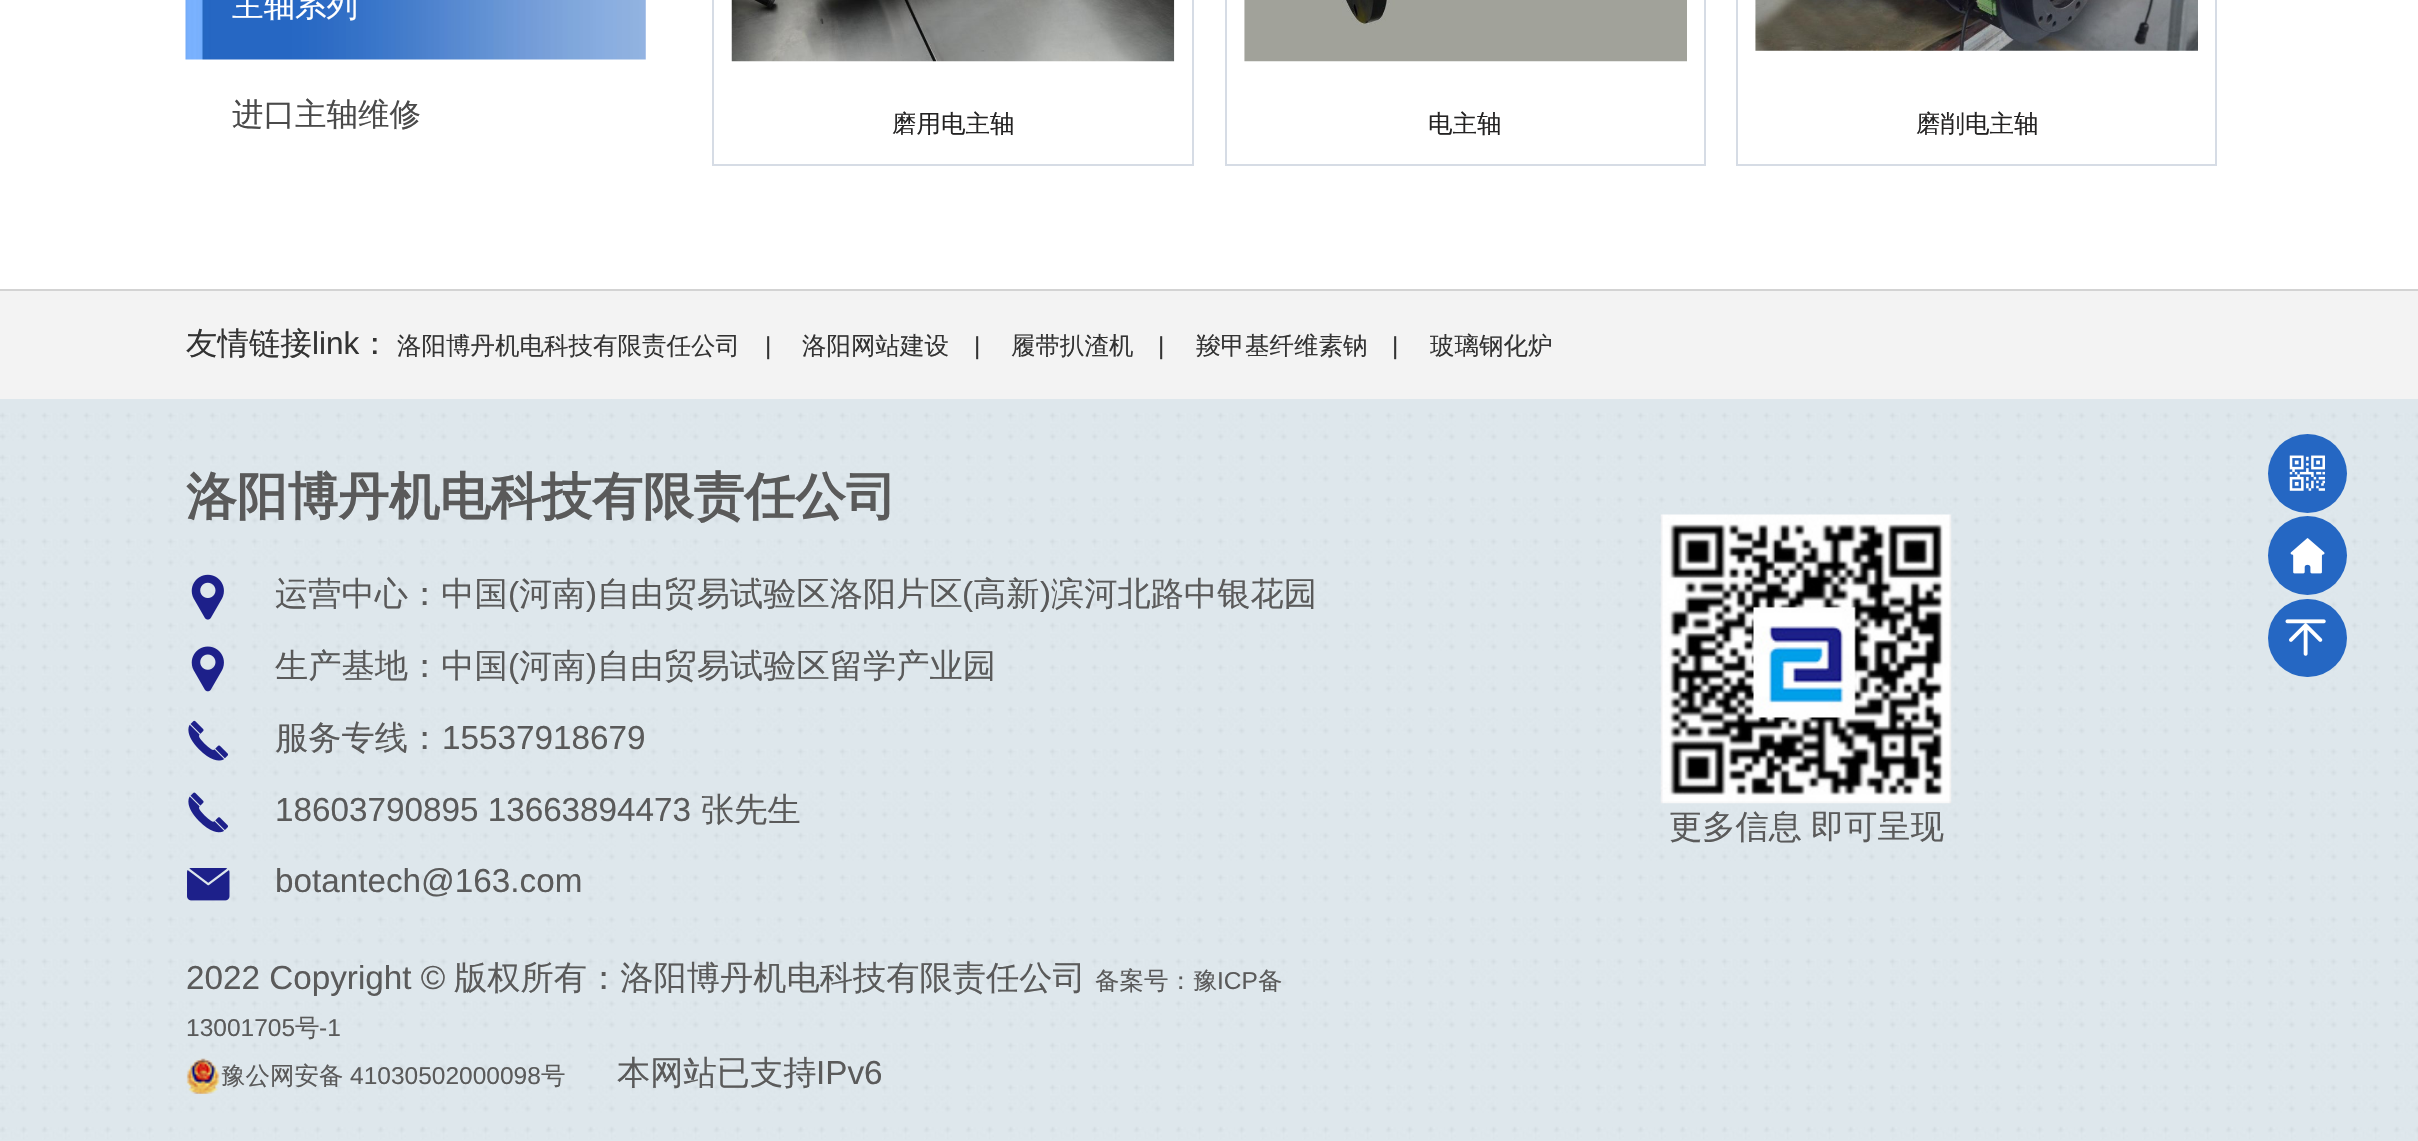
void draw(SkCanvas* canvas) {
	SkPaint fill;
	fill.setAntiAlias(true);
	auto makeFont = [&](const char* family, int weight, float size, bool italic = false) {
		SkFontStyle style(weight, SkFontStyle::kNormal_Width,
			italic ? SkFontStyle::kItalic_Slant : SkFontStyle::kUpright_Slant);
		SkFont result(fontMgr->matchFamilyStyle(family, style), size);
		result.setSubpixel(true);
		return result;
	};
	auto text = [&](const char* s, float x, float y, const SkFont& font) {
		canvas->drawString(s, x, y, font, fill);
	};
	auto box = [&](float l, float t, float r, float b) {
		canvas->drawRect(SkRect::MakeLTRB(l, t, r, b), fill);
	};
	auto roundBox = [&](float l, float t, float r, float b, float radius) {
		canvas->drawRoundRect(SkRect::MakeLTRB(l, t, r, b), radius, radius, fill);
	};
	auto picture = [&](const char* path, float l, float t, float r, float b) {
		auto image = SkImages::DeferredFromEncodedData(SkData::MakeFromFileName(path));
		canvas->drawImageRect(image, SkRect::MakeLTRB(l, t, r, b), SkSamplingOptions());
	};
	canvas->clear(0xFFFFFFFF);
	picture("image0.png", 185, 0, 646, 60);
	fill.setStyle(SkPaint::kStroke_Style);
	fill.setStrokeWidth(2);
	fill.setColor(0xFFD6DCE5);
	canvas->drawRect(SkRect::MakeLTRB(713, -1, 1193, 165), fill);
	picture("image1.png", 731, 0, 1175, 62);
	canvas->drawRect(SkRect::MakeLTRB(1226, -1, 1705, 165), fill);
	picture("image2.png", 1244, 0, 1687, 62);
	canvas->drawRect(SkRect::MakeLTRB(1737, -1, 2216, 165), fill);
	picture("image3.png", 1755, 0, 2198, 51);
	fill.setStyle(SkPaint::kFill_Style);
	fill.setColor(0xFFF3F3F3);
	box(0, 291, 2418, 399);
	fill.setColor(0xFFD3D3D3);
	box(0, 289, 2418, 291);
	picture("image4.png", 0, 399, 2418, 1141);
	picture("image5.png", 191, 574, 224, 620);
	picture("image6.png", 191, 646, 224, 692);
	picture("image7.png", 188, 720, 228, 761);
	picture("image8.png", 188, 792, 228, 833);
	picture("image9.png", 187, 868, 230, 901);
	picture("image10.png", 186, 1058, 220, 1094);
	picture("image11.png", 1660, 514, 1952, 804);
	fill.setColor(0xFF2567C3);
	canvas->drawCircle(2307.5f, 473.5f, 39.5f, fill);
	picture("image12.png", 2289, 455, 2325, 491);
	canvas->drawCircle(2307.5f, 555.5f, 39.5f, fill);
	picture("image13.png", 2290, 538, 2325, 574);
	roundBox(2268, 599, 2347, 677, 39);
	picture("image14.png", 2285, 619, 2326, 656);
	auto font1 = makeFont("WenQuanYi Zen Hei", 500, 31.5f);
	fill.setColor(0xFFFFFFFF);
	text("主轴系列", 232, 16, font1);
	fill.setColor(0xFF4A4A4A);
	text("进口主轴维修", 232, 125, font1);
	auto font2 = makeFont("WenQuanYi Zen Hei", 500, 24.5f);
	fill.setColor(0xFF242323);
	text("磨用电主轴", 892, 132, font2);
	text("电主轴", 1428, 132, font2);
	text("磨削电主轴", 1916, 132, font2);
	fill.setColor(0xFF333333);
	text("友情链接", 186, 354, font1);
	auto font3 = makeFont("Liberation Sans", 400, 31.5f);
	text("link", 312, 354, font3);
	text("：", 359, 354, font1);
	text("洛阳博丹机电科技有限责任公司", 397, 354, font2);
	auto font4 = makeFont("Liberation Sans", 400, 24.5f);
	text("|", 765, 354, font4);
	text("洛阳网站建设", 802, 354, font2);
	text("|", 974, 354, font4);
	text("履带扒渣机", 1011, 354, font2);
	text("|", 1158, 354, font4);
	text("羧甲基纤维素钠", 1196, 354, font2);
	text("|", 1392, 354, font4);
	text("玻璃钢化炉", 1430, 354, font2);
	auto font5 = makeFont("WenQuanYi Zen Hei", 700, 50.75f);
	fill.setColor(0xFF5A5A5A);
	text("洛阳博丹机电科技有限责任公司", 186, 514, font5);
	auto font6 = makeFont("WenQuanYi Zen Hei", 500, 33.25f);
	text("运营中心：中国", 275, 605, font6);
	auto font7 = makeFont("Liberation Sans", 400, 33.25f);
	text("(", 508, 605, font7);
	text("河南", 519, 605, font6);
	text(")", 586, 605, font7);
	text("自由贸易试验区洛阳片区", 597, 605, font6);
	text("(", 962, 605, font7);
	text("高新", 973, 605, font6);
	text(")", 1040, 605, font7);
	text("滨河北路中银花园", 1051, 605, font6);
	text("生产基地：中国", 275, 677, font6);
	text("(", 508, 677, font7);
	text("河南", 519, 677, font6);
	text(")", 586, 677, font7);
	text("自由贸易试验区留学产业园", 597, 677, font6);
	text("服务专线：", 275, 749, font6);
	text("15537918679", 442, 749, font7);
	text("18603790895 13663894473", 275, 821, font7);
	text("张先生", 701, 821, font6);
	text("botantech@163.com", 275, 892, font7);
	text("2022 Copyright ©", 186, 989, font7);
	text("版权所有：洛阳博丹机电科技有限责任公司", 454, 989, font6);
	text("备案号：豫", 1095, 989, font2);
	text("ICP", 1217, 989, font4);
	text("备", 1258, 989, font2);
	text("13001705", 186, 1036, font4);
	text("号", 295, 1036, font2);
	text("-1", 319, 1036, font4);
	text("豫公网安备", 221, 1084, font2);
	text("41030502000098", 350, 1084, font4);
	text("号", 541, 1084, font2);
	text("本网站已支持", 617, 1084, font6);
	text("IPv6", 816, 1084, font7);
	text("更多信息", 1669, 838, font6);
	text("即可呈现", 1811, 838, font6);
}
